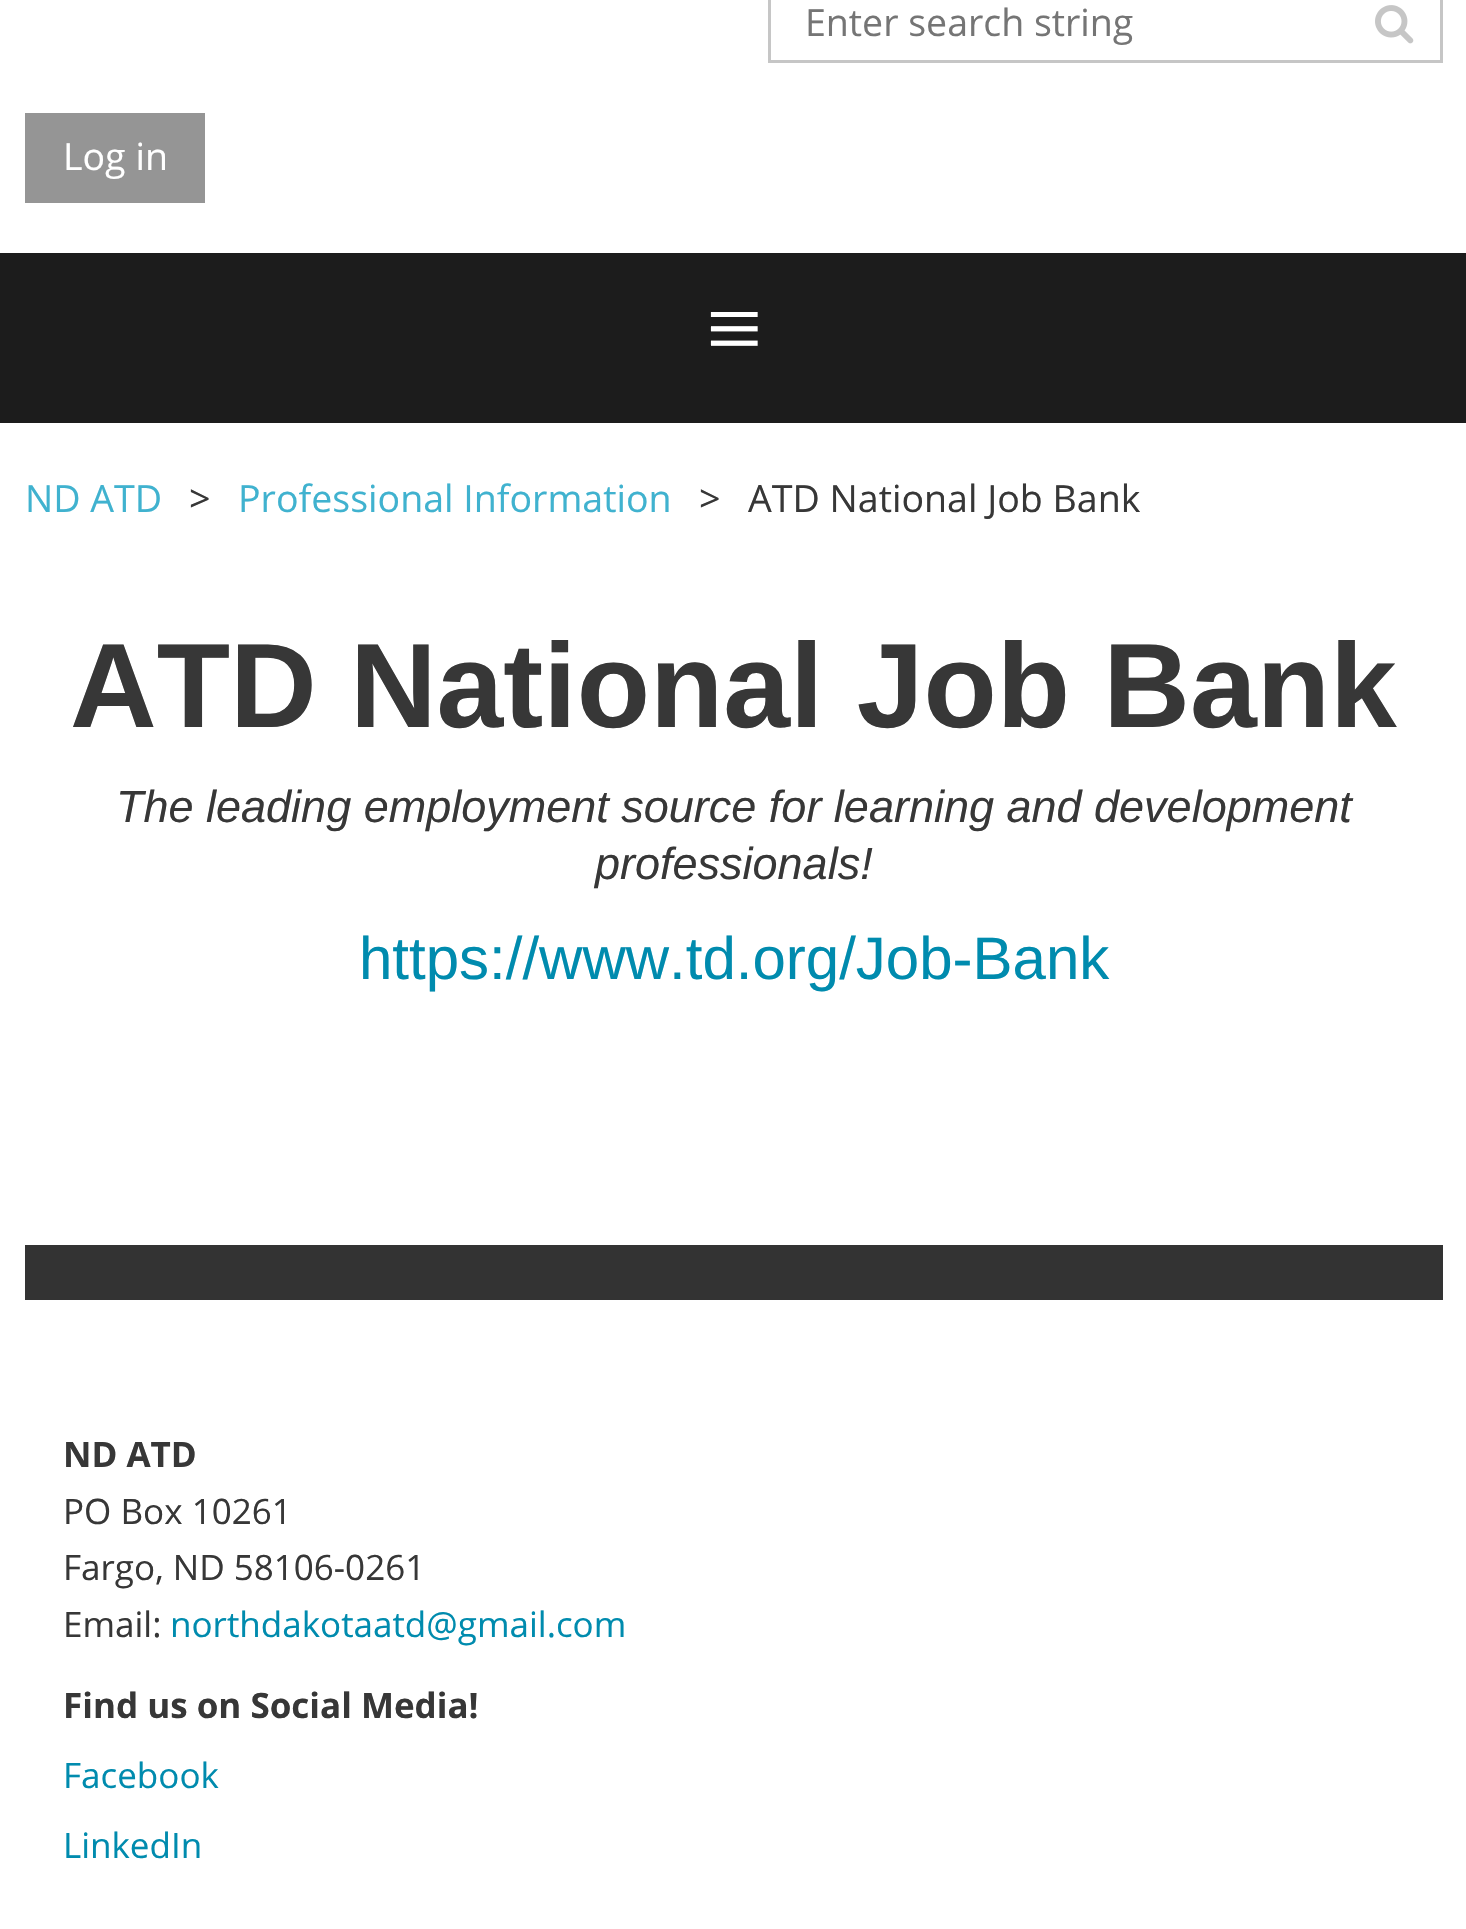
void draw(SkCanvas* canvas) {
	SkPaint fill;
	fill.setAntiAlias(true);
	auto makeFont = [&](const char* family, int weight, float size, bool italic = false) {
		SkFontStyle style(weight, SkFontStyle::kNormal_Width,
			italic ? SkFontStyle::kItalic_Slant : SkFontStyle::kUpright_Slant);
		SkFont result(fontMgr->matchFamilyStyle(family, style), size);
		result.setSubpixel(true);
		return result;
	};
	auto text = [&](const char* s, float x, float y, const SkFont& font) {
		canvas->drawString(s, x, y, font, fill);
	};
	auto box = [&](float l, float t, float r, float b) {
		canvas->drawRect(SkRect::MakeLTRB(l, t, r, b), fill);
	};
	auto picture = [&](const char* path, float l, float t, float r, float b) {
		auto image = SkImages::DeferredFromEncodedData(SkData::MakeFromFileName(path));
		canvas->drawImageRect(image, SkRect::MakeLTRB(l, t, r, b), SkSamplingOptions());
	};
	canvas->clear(0xFFFFFFFF);
	fill.setStyle(SkPaint::kStroke_Style);
	fill.setStrokeWidth(3);
	fill.setColor(0xFFC6C6C6);
	canvas->drawRect(SkRect::MakeLTRB(769.5f, -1.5f, 1441.5f, 61.5f), fill);
	picture("image0.png", 1375, 5, 1414, 44);
	fill.setStyle(SkPaint::kFill_Style);
	fill.setColor(0xFF959595);
	box(25, 113, 205, 203);
	fill.setColor(0xFF1C1C1C);
	box(0, 253, 1466, 423);
	fill.setColor(0xFF333333);
	box(25, 1245, 1443, 1300);
	auto font1 = makeFont("Open Sans", 400, 37.5f);
	fill.setColor(0xFF757575);
	text("Enter search string", 805, 36, font1);
	fill.setColor(0xFFFFFFFF);
	text("Log in", 63, 170, font1);
	auto font2 = makeFont("Liberation Serif", 400, 100);
	text("≡", 706, 362, font2);
	fill.setColor(0xFF40B2CF);
	text("ND ATD", 25, 512, font1);
	fill.setColor(0xFF373737);
	text(">", 189, 512, font1);
	fill.setColor(0xFF40B2CF);
	text("Professional Information", 238, 512, font1);
	fill.setColor(0xFF373737);
	text(">", 699, 512, font1);
	text("ATD National Job Bank", 748, 512, font1);
	auto font3 = makeFont("Liberation Sans", 700, 120);
	text("ATD National Job Bank", 70, 727, font3);
	auto font4 = makeFont("Liberation Sans", 400, 45, true);
	text("The leading employment source for learning and development", 116, 822, font4);
	text("professionals!", 595, 879, font4);
	auto font5 = makeFont("Liberation Sans", 400, 60);
	fill.setColor(0xFF008BAE);
	text("https://www.td.org/Job-Bank", 359, 979, font5);
	auto font6 = makeFont("Open Sans", 700, 35);
	fill.setColor(0xFF373737);
	text("ND ATD", 63, 1467, font6);
	auto font7 = makeFont("Open Sans", 400, 35);
	text("PO Box 10261", 63, 1524, font7);
	text("Fargo, ND 58106-0261", 63, 1580, font7);
	text("Email:", 63, 1637, font7);
	fill.setColor(0xFF008BAE);
	text("northdakotaatd@gmail.com", 170, 1637, font7);
	fill.setColor(0xFF373737);
	text("Find us on Social Media!", 63, 1718, font6);
	fill.setColor(0xFF008BAE);
	text("Facebook", 63, 1788, font7);
	text("LinkedIn", 63, 1858, font7);
}
